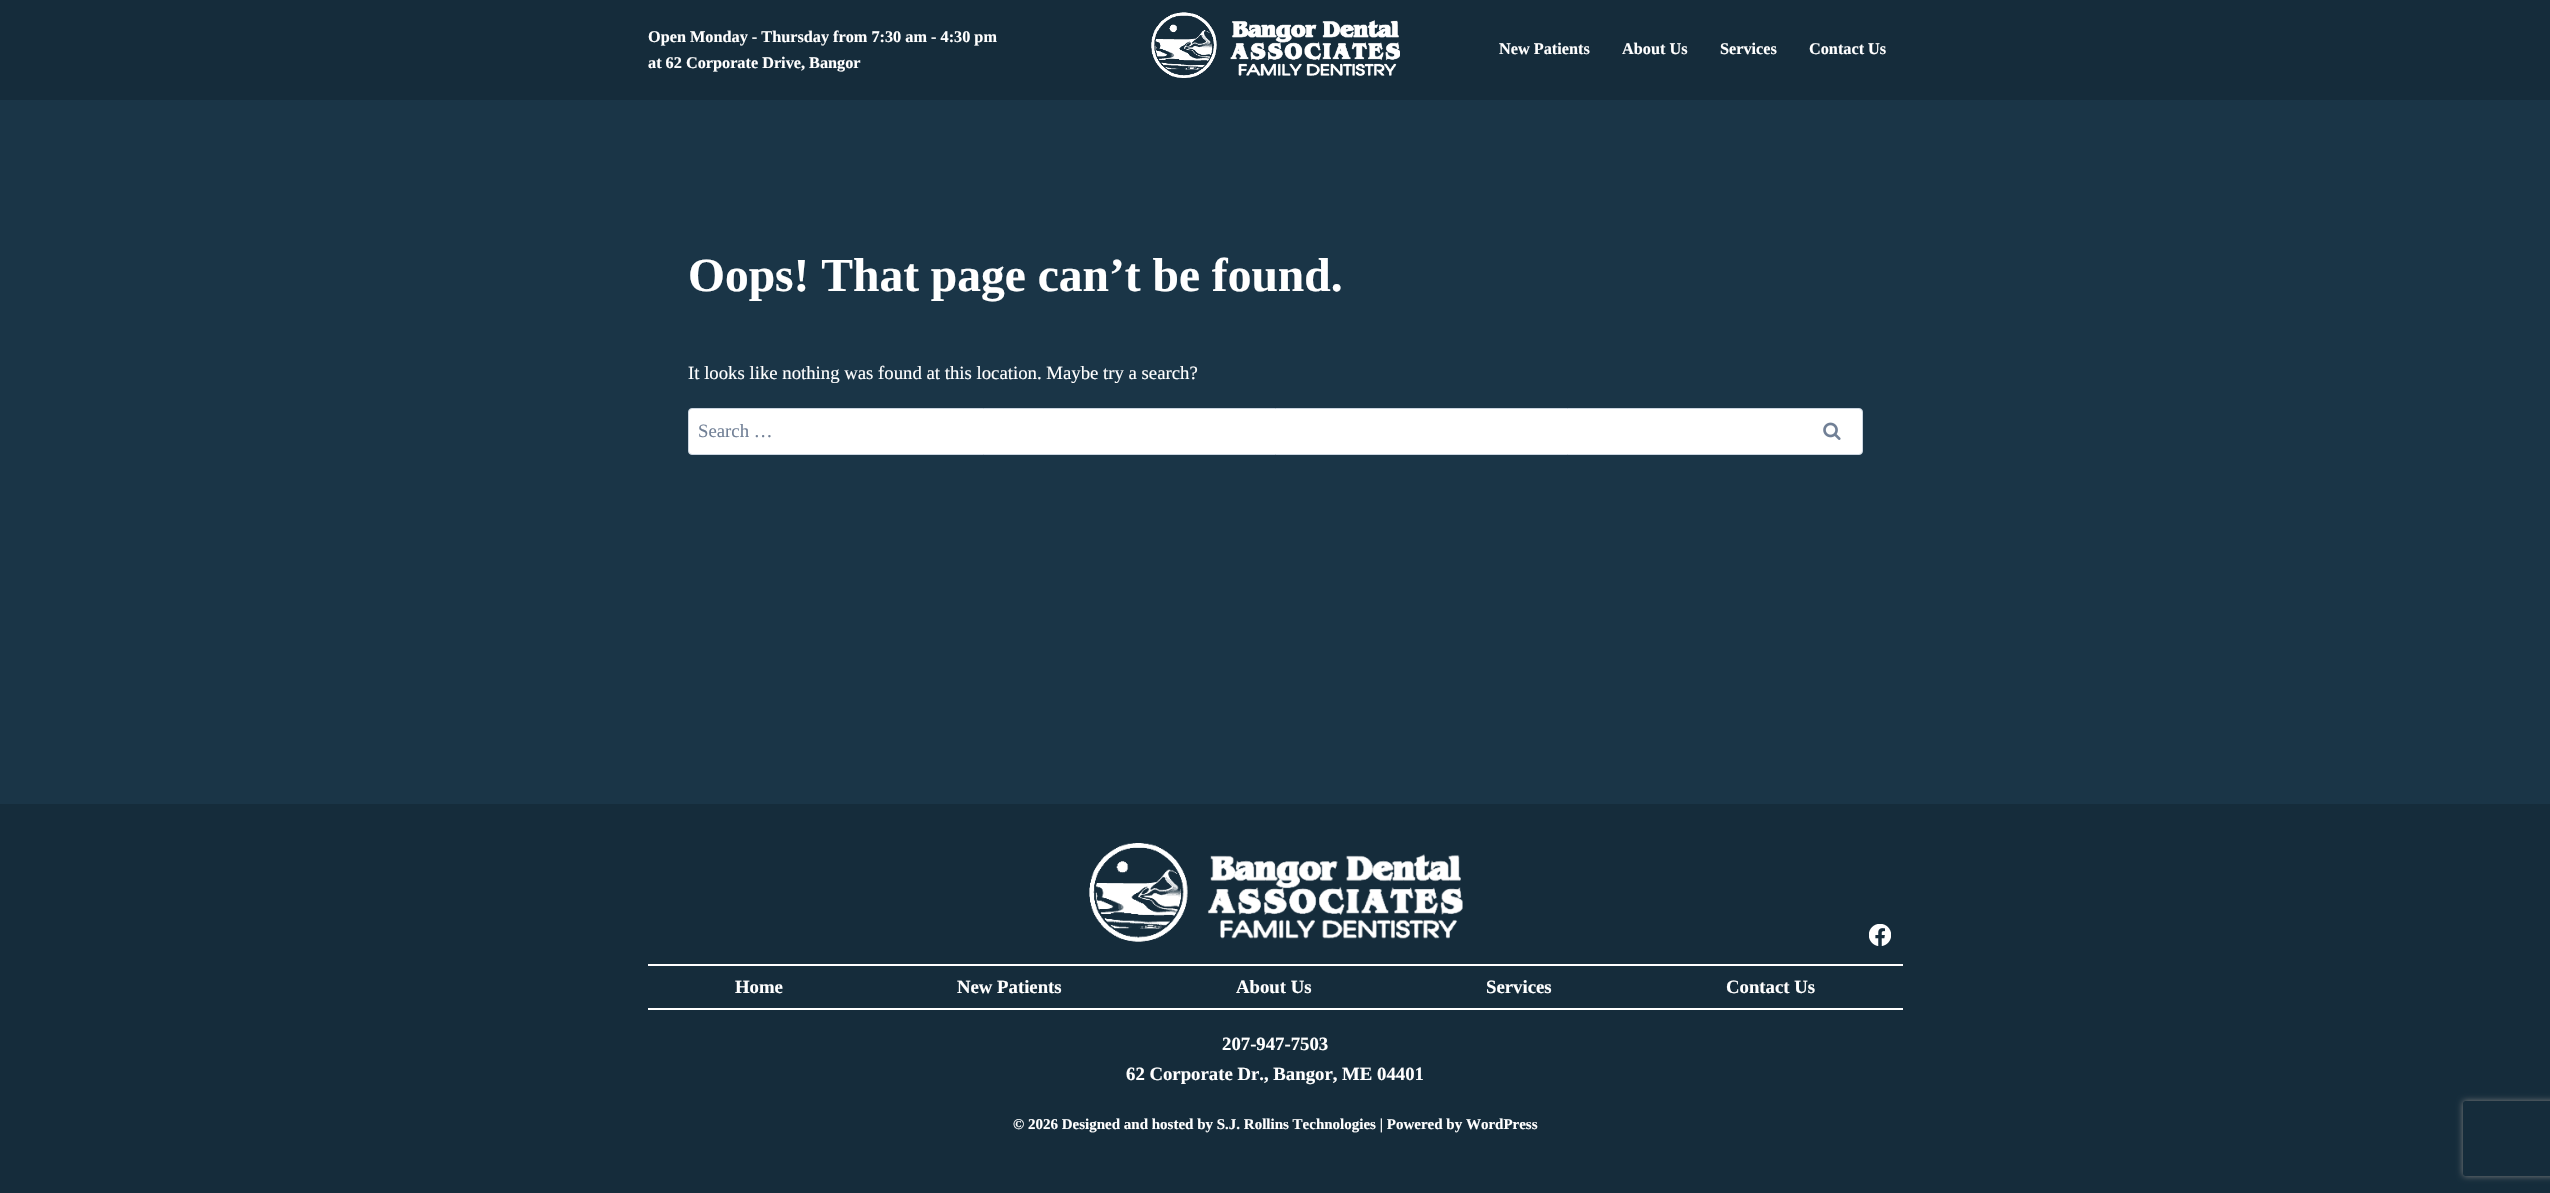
void draw(SkCanvas* canvas) {
	SkPaint fill;
	fill.setAntiAlias(true);
	auto makeFont = [&](const char* family, int weight, float size, bool italic = false) {
		SkFontStyle style(weight, SkFontStyle::kNormal_Width,
			italic ? SkFontStyle::kItalic_Slant : SkFontStyle::kUpright_Slant);
		SkFont result(fontMgr->matchFamilyStyle(family, style), size);
		result.setSubpixel(true);
		return result;
	};
	auto text = [&](const char* s, float x, float y, const SkFont& font) {
		canvas->drawString(s, x, y, font, fill);
	};
	auto box = [&](float l, float t, float r, float b) {
		canvas->drawRect(SkRect::MakeLTRB(l, t, r, b), fill);
	};
	auto picture = [&](const char* path, float l, float t, float r, float b) {
		auto image = SkImages::DeferredFromEncodedData(SkData::MakeFromFileName(path));
		canvas->drawImageRect(image, SkRect::MakeLTRB(l, t, r, b), SkSamplingOptions());
	};
	canvas->clear(0xFF1A3547);
	fill.setColor(0xFF152C3B);
	box(0, 0, 2550, 100);
	picture("image0.png", 1151, 12, 1400, 78);
	fill.setColor(0xFFFFFFFF);
	canvas->drawRoundRect(SkRect::MakeLTRB(688.5f, 408.5f, 1862.5f, 454.5f), 3.5f, 3.5f, fill);
	fill.setStyle(SkPaint::kStroke_Style);
	fill.setStrokeWidth(1);
	fill.setColor(0xFFCBD5E0);
	canvas->drawRoundRect(SkRect::MakeLTRB(688.5f, 408.5f, 1862.5f, 454.5f), 3.5f, 3.5f, fill);
	picture("image1.png", 1823, 422, 1841, 440);
	fill.setStyle(SkPaint::kFill_Style);
	fill.setColor(0xFF152C3B);
	box(0, 804, 2550, 1193);
	picture("image2.png", 1089, 843, 1463, 942);
	picture("image3.png", 1869, 924, 1891, 946);
	fill.setColor(0xFFFFFFFF);
	box(648, 964, 1903, 966);
	box(648, 1008, 1903, 1010);
	canvas->save();
	canvas->clipPath(SkPathBuilder(SkPathFillType::kEvenOdd).moveTo(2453, 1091).lineTo(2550, 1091).lineTo(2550, 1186).lineTo(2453, 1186).close().moveTo(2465.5f, 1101).lineTo(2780.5f, 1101).cubicTo(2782, 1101, 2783, 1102, 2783, 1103.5f).lineTo(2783, 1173.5f).cubicTo(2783, 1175, 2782, 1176, 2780.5f, 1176).lineTo(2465.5f, 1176).cubicTo(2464, 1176, 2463, 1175, 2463, 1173.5f).lineTo(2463, 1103.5f).cubicTo(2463, 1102, 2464, 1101, 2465.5f, 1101).close().detach(), true);
	fill.setColor(0xFF808080);
	fill.setMaskFilter(SkMaskFilter::MakeBlur(kNormal_SkBlurStyle, 3));
	canvas->drawRoundRect(SkRect::MakeLTRB(2463, 1101, 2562, 1176), 2.5f, 2.5f, fill);
	fill.setMaskFilter(nullptr);
	canvas->restore();
	auto font1 = makeFont("Liberation Serif", 700, 16.25f);
	fill.setColor(0xFFFFFFFF);
	text("Open Monday - Thursday from 7:30 am - 4:30 pm", 648, 42, font1);
	text("at 62 Corporate Drive, Bangor", 648, 68, font1);
	text("New Patients", 1499, 54, font1);
	text("About Us", 1622, 54, font1);
	text("Services", 1720, 54, font1);
	text("Contact Us", 1809, 54, font1);
	auto font2 = makeFont("Liberation Serif", 700, 47.5f);
	text("Oops! That page can’t be found.", 688, 291, font2);
	auto font3 = makeFont("Liberation Serif", 400, 18.75f);
	text("It looks like nothing was found at this location. Maybe try a search?", 688, 379, font3);
	fill.setColor(0xFF718096);
	text("Search …", 698, 437, font3);
	auto font4 = makeFont("Liberation Serif", 700, 18.75f);
	fill.setColor(0xFFFFFFFF);
	text("Home", 735, 993, font4);
	text("New Patients", 957, 993, font4);
	text("About Us", 1236, 993, font4);
	text("Services", 1486, 993, font4);
	text("Contact Us", 1726, 993, font4);
	text("207-947-7503", 1222, 1050, font4);
	text("62 Corporate Dr., Bangor, ME 04401", 1126, 1080, font4);
	auto font5 = makeFont("Liberation Serif", 700, 15);
	text("© 2026 Designed and hosted by S.J. Rollins Technologies | Powered by WordPress", 1013, 1129, font5);
}
